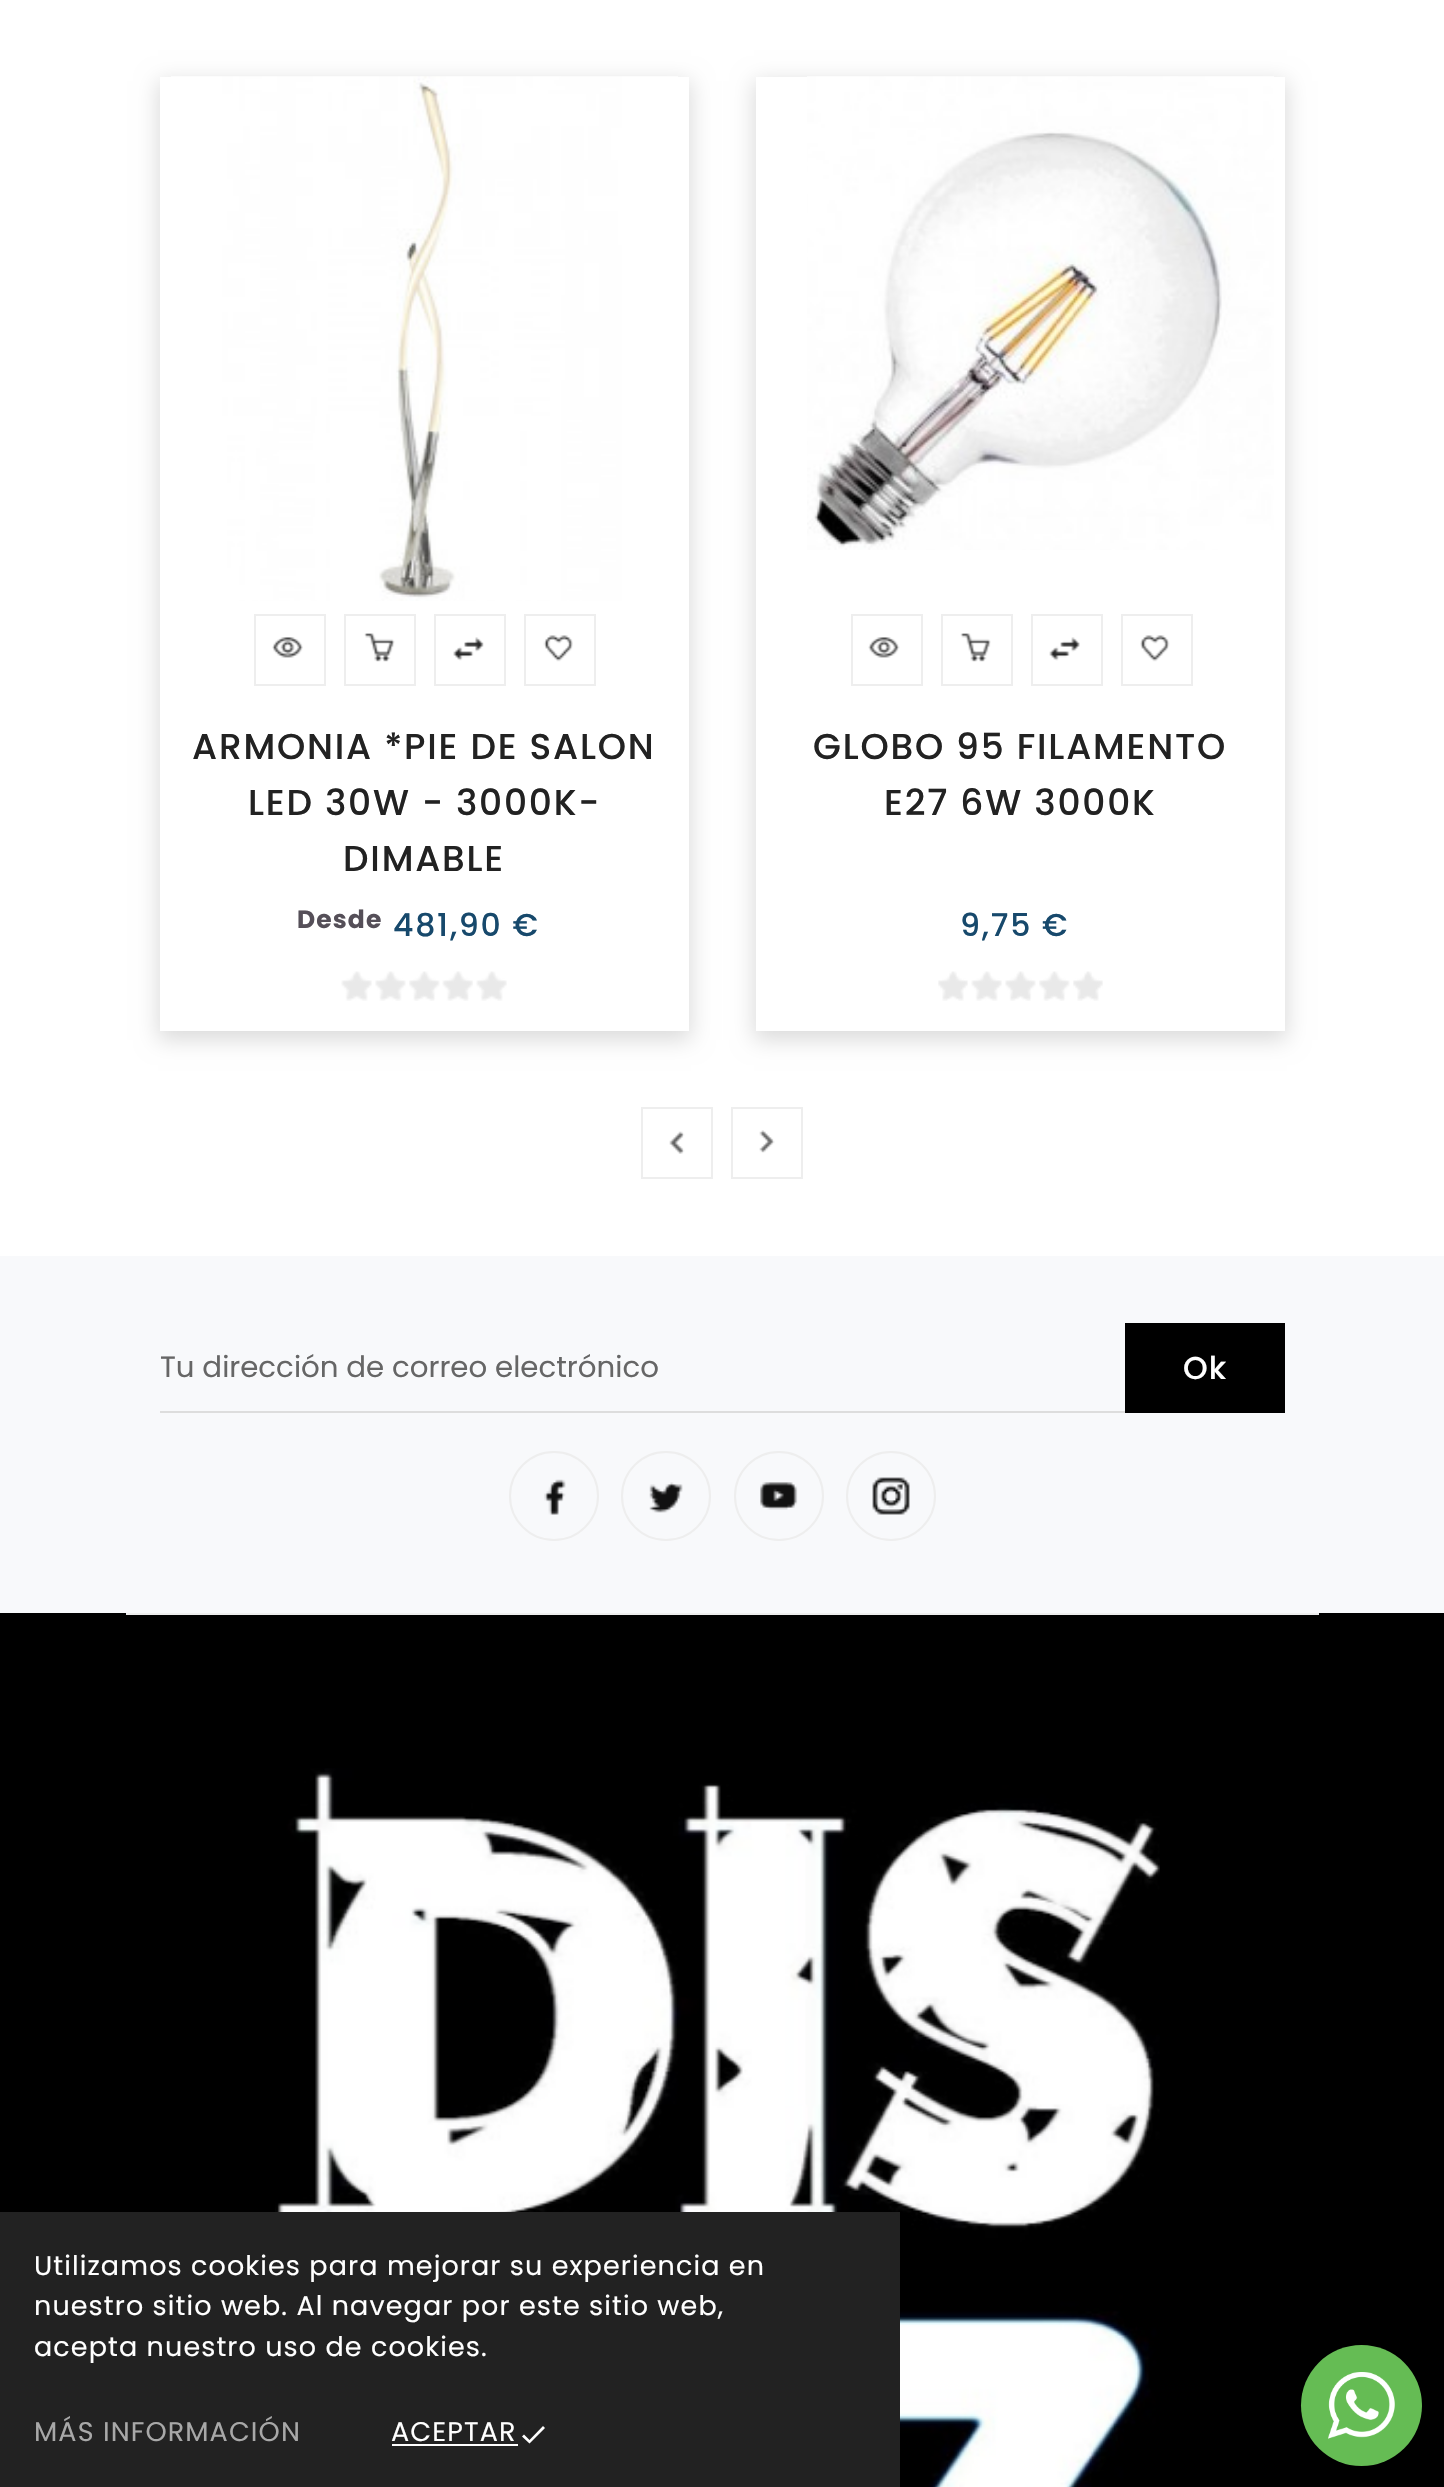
void draw(SkCanvas* canvas) {
	SkPaint fill;
	fill.setAntiAlias(true);
	auto makeFont = [&](const char* family, int weight, float size, bool italic = false) {
		SkFontStyle style(weight, SkFontStyle::kNormal_Width,
			italic ? SkFontStyle::kItalic_Slant : SkFontStyle::kUpright_Slant);
		SkFont result(fontMgr->matchFamilyStyle(family, style), size);
		result.setSubpixel(true);
		return result;
	};
	auto text = [&](const char* s, float x, float y, const SkFont& font) {
		canvas->drawString(s, x, y, font, fill);
	};
	auto spacedText = [&](const char* s, float x, float y, const SkFont& font, const SkPaint& ink, float letter, float word) {
		std::vector<SkGlyphID> glyphs(font.countText(s, strlen(s), SkTextEncoding::kUTF8));
		std::vector<float> xs(glyphs.size());
		font.textToGlyphs(s, strlen(s), SkTextEncoding::kUTF8, glyphs);
		font.getXPos(glyphs, xs, x);
		float extra = 0;
		for (size_t i = 0; i < glyphs.size(); i++) {
			xs[i] += extra;
			extra += letter + word * (glyphs[i] == font.unicharToGlyph(' '));
		}
		canvas->drawTextBlob(SkTextBlob::MakeFromPosHGlyphs(glyphs, xs, y, font), 0, 0, ink);
	};
	auto box = [&](float l, float t, float r, float b) {
		canvas->drawRect(SkRect::MakeLTRB(l, t, r, b), fill);
	};
	auto picture = [&](const char* path, float l, float t, float r, float b) {
		auto image = SkImages::DeferredFromEncodedData(SkData::MakeFromFileName(path));
		canvas->drawImageRect(image, SkRect::MakeLTRB(l, t, r, b), SkSamplingOptions());
	};
	canvas->clear(0xFFFFFFFF);
	fill.setColor(0x24000000);
	fill.setMaskFilter(SkMaskFilter::MakeBlur(kNormal_SkBlurStyle, 10.5f));
	canvas->drawRect(SkRect::MakeLTRB(158, 81, 691, 1040), fill);
	fill.setMaskFilter(nullptr);
	fill.setColor(0xFFFFFFFF);
	box(160, 77, 689, 1031);
	picture("image0.png", 171, 76, 678, 601);
	fill.setStyle(SkPaint::kStroke_Style);
	fill.setStrokeWidth(2);
	fill.setColor(0xFFEEEEEE);
	canvas->drawRect(SkRect::MakeLTRB(255, 615, 325, 685), fill);
	picture("image1.png", 272, 637, 303, 658);
	canvas->drawRect(SkRect::MakeLTRB(345, 615, 415, 685), fill);
	picture("image2.png", 364, 633, 395, 662);
	canvas->drawRect(SkRect::MakeLTRB(435, 615, 505, 685), fill);
	picture("image3.png", 453, 637, 484, 661);
	canvas->drawRect(SkRect::MakeLTRB(525, 615, 595, 685), fill);
	picture("image4.png", 543, 635, 573, 662);
	picture("image5.png", 341, 971, 372, 1001);
	picture("image6.png", 375, 971, 406, 1001);
	picture("image7.png", 409, 971, 440, 1001);
	picture("image8.png", 442, 971, 473, 1001);
	picture("image9.png", 476, 971, 507, 1001);
	fill.setStyle(SkPaint::kFill_Style);
	fill.setColor(0x24000000);
	fill.setMaskFilter(SkMaskFilter::MakeBlur(kNormal_SkBlurStyle, 10.5f));
	canvas->drawRect(SkRect::MakeLTRB(754, 81, 1287, 1040), fill);
	fill.setMaskFilter(nullptr);
	fill.setColor(0xFFFFFFFF);
	box(756, 77, 1285, 1031);
	picture("image10.png", 807, 76, 1274, 550);
	fill.setStyle(SkPaint::kStroke_Style);
	fill.setColor(0xFFEEEEEE);
	canvas->drawRect(SkRect::MakeLTRB(852, 615, 922, 685), fill);
	picture("image11.png", 868, 637, 900, 658);
	canvas->drawRect(SkRect::MakeLTRB(942, 615, 1012, 685), fill);
	picture("image12.png", 960, 633, 991, 662);
	canvas->drawRect(SkRect::MakeLTRB(1032, 615, 1102, 685), fill);
	picture("image13.png", 1049, 637, 1080, 661);
	canvas->drawRect(SkRect::MakeLTRB(1122, 615, 1192, 685), fill);
	picture("image14.png", 1140, 635, 1170, 662);
	picture("image15.png", 938, 971, 968, 1001);
	picture("image5.png", 971, 971, 1002, 1001);
	picture("image16.png", 1005, 971, 1036, 1001);
	picture("image7.png", 1039, 971, 1070, 1001);
	picture("image17.png", 1073, 971, 1103, 1001);
	picture("image18.png", 669, 1131, 685, 1154);
	canvas->drawRect(SkRect::MakeLTRB(642, 1108, 712, 1178), fill);
	picture("image19.png", 759, 1130, 775, 1153);
	canvas->drawRect(SkRect::MakeLTRB(732, 1108, 802, 1178), fill);
	fill.setStyle(SkPaint::kFill_Style);
	fill.setColor(0xFFF8F9FB);
	box(0, 1256, 1444, 1613);
	fill.setColor(0xFFDDDDDD);
	box(160, 1411, 1125, 1413);
	fill.setColor(0xFF000000);
	box(1125, 1323, 1285, 1413);
	fill.setStyle(SkPaint::kStroke_Style);
	fill.setColor(0xFFEEEEEE);
	canvas->drawCircle(554, 1496, 44, fill);
	picture("image20.png", 544, 1479, 566, 1515);
	canvas->drawCircle(666, 1496, 44, fill);
	picture("image21.png", 649, 1482, 683, 1513);
	canvas->drawCircle(779, 1496, 44, fill);
	picture("image22.png", 760, 1482, 798, 1510);
	canvas->drawCircle(891, 1496, 44, fill);
	picture("image23.png", 872, 1477, 910, 1515);
	fill.setStyle(SkPaint::kFill_Style);
	fill.setColor(0xFF000000);
	box(0, 1613, 1444, 2487);
	fill.setColor(0xFFEEEEEE);
	box(126, 1613, 1319, 1615);
	picture("image24.png", 275, 1768, 1160, 2487);
	fill.setColor(0xFF65BC54);
	canvas->drawCircle(1361.5f, 2405.5f, 60.5f, fill);
	picture("image25.png", 1328, 2372, 1395, 2439);
	fill.setColor(0xFF222222);
	box(0, 2212, 900, 2487);
	fill.setColor(0xFFFFFFFF);
	box(392, 2444, 518, 2446);
	canvas->drawPath(SkPathBuilder().moveTo(529.5f, 2440).lineTo(543, 2426).lineTo(545, 2428).lineTo(529.5f, 2443.5f).lineTo(522, 2436.5f).lineTo(524, 2434.5f).close().detach(), fill);
	auto font1 = makeFont("Poppins", 500, 36);
	fill.setColor(0xFF222222);
	spacedText("ARMONIA *PIE DE SALON", 192, 759, font1, fill, 1.8f, 0);
	spacedText("LED 30W - 3000K-", 248, 815, font1, fill, 1.8f, 0);
	spacedText("DIMABLE", 343, 871, font1, fill, 1.8f, 0);
	auto font2 = makeFont("Poppins", 700, 25);
	fill.setColor(0xFF554F58);
	spacedText("Desde", 297, 928, font2, fill, 1.1f, 0);
	auto font3 = makeFont("Poppins", 500, 31.5f);
	fill.setColor(0xFF17496C);
	spacedText("481,90 €", 393, 936, font3, fill, 1.8f, 0);
	fill.setColor(0xFF222222);
	spacedText("GLOBO 95 FILAMENTO", 813, 759, font1, fill, 1.8f, 0);
	spacedText("E27 6W 3000K", 884, 815, font1, fill, 1.8f, 0);
	fill.setColor(0xFF17496C);
	spacedText("9,75 €", 960, 936, font3, fill, 1.8f, 0);
	auto font4 = makeFont("Poppins", 400, 29.25f);
	fill.setColor(0xFF666666);
	text("Tu dirección de correo electrónico", 160, 1377, font4);
	fill.setColor(0xFFFFFFFF);
	spacedText("Ok", 1183, 1379, font3, fill, 1, 0);
	auto font5 = makeFont("Poppins", 400, 27);
	spacedText("Utilizamos cookies para mejorar su experiencia en", 34, 2275, font5, fill, 1.1f, 0);
	spacedText("nuestro sitio web. Al navegar por este sitio web,", 34, 2315, font5, fill, 1.1f, 0);
	spacedText("acepta nuestro uso de cookies.", 34, 2356, font5, fill, 1.1f, 0);
	fill.setColor(0xFFA8A8A8);
	spacedText("MÁS INFORMACIÓN", 34, 2441, font5, fill, 1.1f, 0);
	fill.setColor(0xFFFFFFFF);
	spacedText("ACEPTAR", 391, 2441, font5, fill, 1.1f, 0);
}
